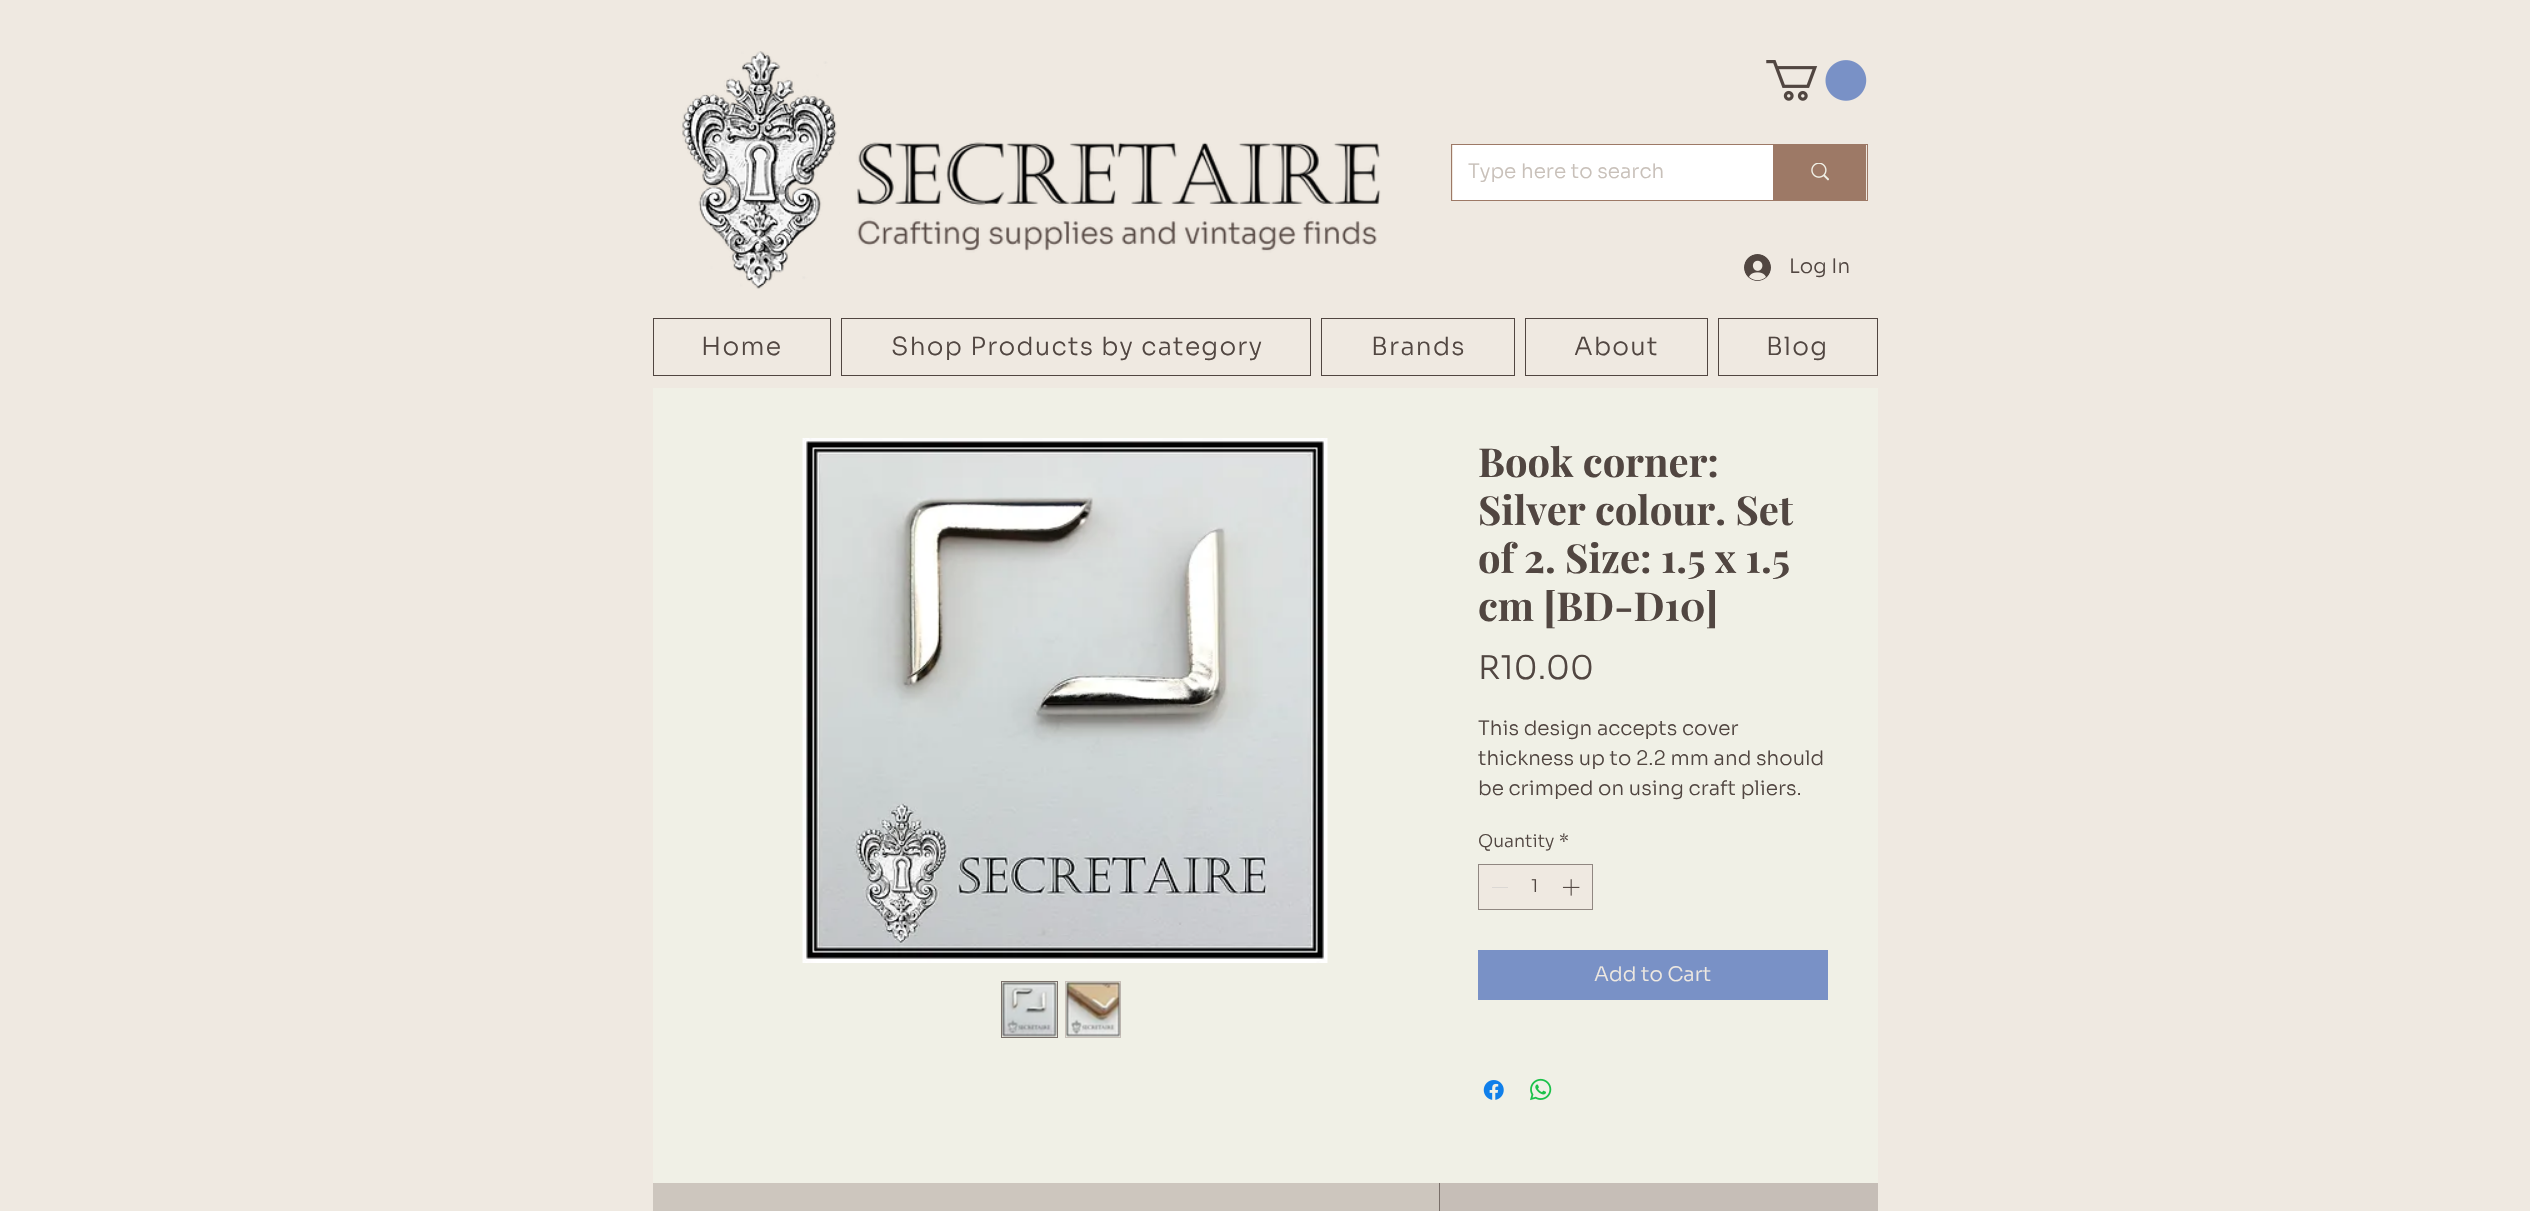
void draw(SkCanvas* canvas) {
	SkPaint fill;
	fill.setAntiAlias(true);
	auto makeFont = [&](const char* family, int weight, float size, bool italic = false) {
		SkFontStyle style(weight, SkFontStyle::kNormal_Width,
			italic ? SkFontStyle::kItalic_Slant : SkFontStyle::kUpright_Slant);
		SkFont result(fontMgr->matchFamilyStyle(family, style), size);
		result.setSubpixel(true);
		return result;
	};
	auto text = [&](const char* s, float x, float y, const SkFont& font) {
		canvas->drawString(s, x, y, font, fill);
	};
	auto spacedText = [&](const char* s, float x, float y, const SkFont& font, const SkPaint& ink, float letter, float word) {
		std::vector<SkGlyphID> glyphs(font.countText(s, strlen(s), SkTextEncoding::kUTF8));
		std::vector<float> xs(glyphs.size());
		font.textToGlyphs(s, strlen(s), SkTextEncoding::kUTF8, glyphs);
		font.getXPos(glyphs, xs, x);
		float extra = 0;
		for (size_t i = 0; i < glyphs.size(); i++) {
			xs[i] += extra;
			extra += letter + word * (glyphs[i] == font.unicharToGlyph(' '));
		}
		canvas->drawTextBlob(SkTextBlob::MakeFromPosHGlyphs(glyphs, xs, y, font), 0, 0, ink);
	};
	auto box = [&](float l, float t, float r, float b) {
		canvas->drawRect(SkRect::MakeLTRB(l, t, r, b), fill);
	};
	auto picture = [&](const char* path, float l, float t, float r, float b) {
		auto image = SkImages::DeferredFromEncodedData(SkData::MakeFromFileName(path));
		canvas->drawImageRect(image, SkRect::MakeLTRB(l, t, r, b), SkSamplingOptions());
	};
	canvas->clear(0xFFEFE9E1);
	picture("image0.png", 682, 51, 1381, 289);
	picture("image1.png", 1766, 60, 1867, 101);
	fill.setStyle(SkPaint::kStroke_Style);
	fill.setStrokeWidth(1);
	fill.setColor(0xFF9D7966);
	canvas->drawRect(SkRect::MakeLTRB(1451.5f, 144.5f, 1867.5f, 200.5f), fill);
	fill.setStyle(SkPaint::kFill_Style);
	fill.setColor(0xFFFFFFFF);
	box(1453, 145, 1773, 200);
	fill.setColor(0xFF9D7966);
	box(1773, 145, 1866, 200);
	picture("image2.png", 1811, 163, 1829, 181);
	picture("image3.png", 1744, 254, 1771, 281);
	fill.setStyle(SkPaint::kStroke_Style);
	fill.setColor(0xFF514641);
	canvas->drawRect(SkRect::MakeLTRB(653.5f, 318.5f, 830.5f, 375.5f), fill);
	canvas->drawRect(SkRect::MakeLTRB(841.5f, 318.5f, 1310.5f, 375.5f), fill);
	canvas->drawRect(SkRect::MakeLTRB(1321.5f, 318.5f, 1514.5f, 375.5f), fill);
	canvas->drawRect(SkRect::MakeLTRB(1525.5f, 318.5f, 1707.5f, 375.5f), fill);
	canvas->drawRect(SkRect::MakeLTRB(1718.5f, 318.5f, 1877.5f, 375.5f), fill);
	fill.setStyle(SkPaint::kFill_Style);
	fill.setColor(0xFFF0F0E6);
	box(653, 388, 1878, 1183);
	picture("image4.png", 802, 438, 1328, 963);
	fill.setStyle(SkPaint::kStroke_Style);
	fill.setColor(0xFF796F69);
	canvas->drawRect(SkRect::MakeLTRB(1001.5f, 981.5f, 1057.5f, 1037.5f), fill);
	picture("image5.png", 1002, 982, 1057, 1037);
	fill.setColor(0xFFC8C0B9);
	canvas->drawRect(SkRect::MakeLTRB(1065.5f, 981.5f, 1120.5f, 1037.5f), fill);
	picture("image6.png", 1066, 982, 1121, 1037);
	fill.setStyle(SkPaint::kFill_Style);
	fill.setColor(0xFFEFE9E1);
	canvas->drawRect(SkRect::MakeLTRB(1478.5f, 864.5f, 1592.5f, 909.5f), fill);
	fill.setStyle(SkPaint::kStroke_Style);
	fill.setColor(0xFF908781);
	canvas->drawRect(SkRect::MakeLTRB(1478.5f, 864.5f, 1592.5f, 909.5f), fill);
	fill.setStyle(SkPaint::kFill_Style);
	fill.setColor(0xFFDBD8D4);
	box(1492, 887, 1508, 888);
	picture("image7.png", 1562, 879, 1580, 896);
	fill.setColor(0xFF7991C6);
	box(1478, 950, 1828, 1000);
	picture("image8.png", 1483, 1080, 1504, 1100);
	picture("image9.png", 1530, 1078, 1552, 1101);
	fill.setColor(0xFFCDC6BE);
	box(653, 1183, 1439, 1211);
	fill.setColor(0xFFC6BEB7);
	box(1440, 1183, 1878, 1211);
	fill.setColor(0xFF796F69);
	box(1439, 1183, 1440, 1211);
	auto font1 = makeFont("Sora", 300, 20);
	fill.setColor(0xFFC8C0B9);
	text("Type here to search", 1468, 178, font1);
	fill.setColor(0xFF514641);
	text("Log In", 1789, 273, font1);
	auto font2 = makeFont("Sora", 300, 25);
	spacedText("Home", 701, 355, font2, fill, 1.25f, 0);
	spacedText("Shop Products by category", 891, 355, font2, fill, 1.25f, 0);
	spacedText("Brands", 1371, 355, font2, fill, 1.25f, 0);
	spacedText("About", 1574, 355, font2, fill, 1.25f, 0);
	spacedText("Blog", 1766, 355, font2, fill, 1.25f, 0);
	auto font3 = makeFont("Playfair Display", 700, 40);
	text("Book corner:", 1478, 477, font3);
	text("Silver colour. Set", 1478, 525, font3);
	text("of 2. Size: 1.5 x 1.5", 1478, 573, font3);
	text("cm [BD-D10]", 1478, 621, font3);
	auto font4 = makeFont("Sora", 300, 32.5f);
	text("R10.00", 1478, 679, font4);
	text("This design accepts cover", 1478, 735, font1);
	text("thickness up to 2.2 mm and should", 1478, 765, font1);
	text("be crimped on using craft pliers.", 1478, 795, font1);
	auto font5 = makeFont("Sora", 300, 17.5f);
	text("Quantity", 1478, 847, font5);
	text("*", 1559, 847, font5);
	text("1", 1531, 892, font5);
	fill.setColor(0xFFEFE9E1);
	text("Add to Cart", 1594, 981, font1);
}
